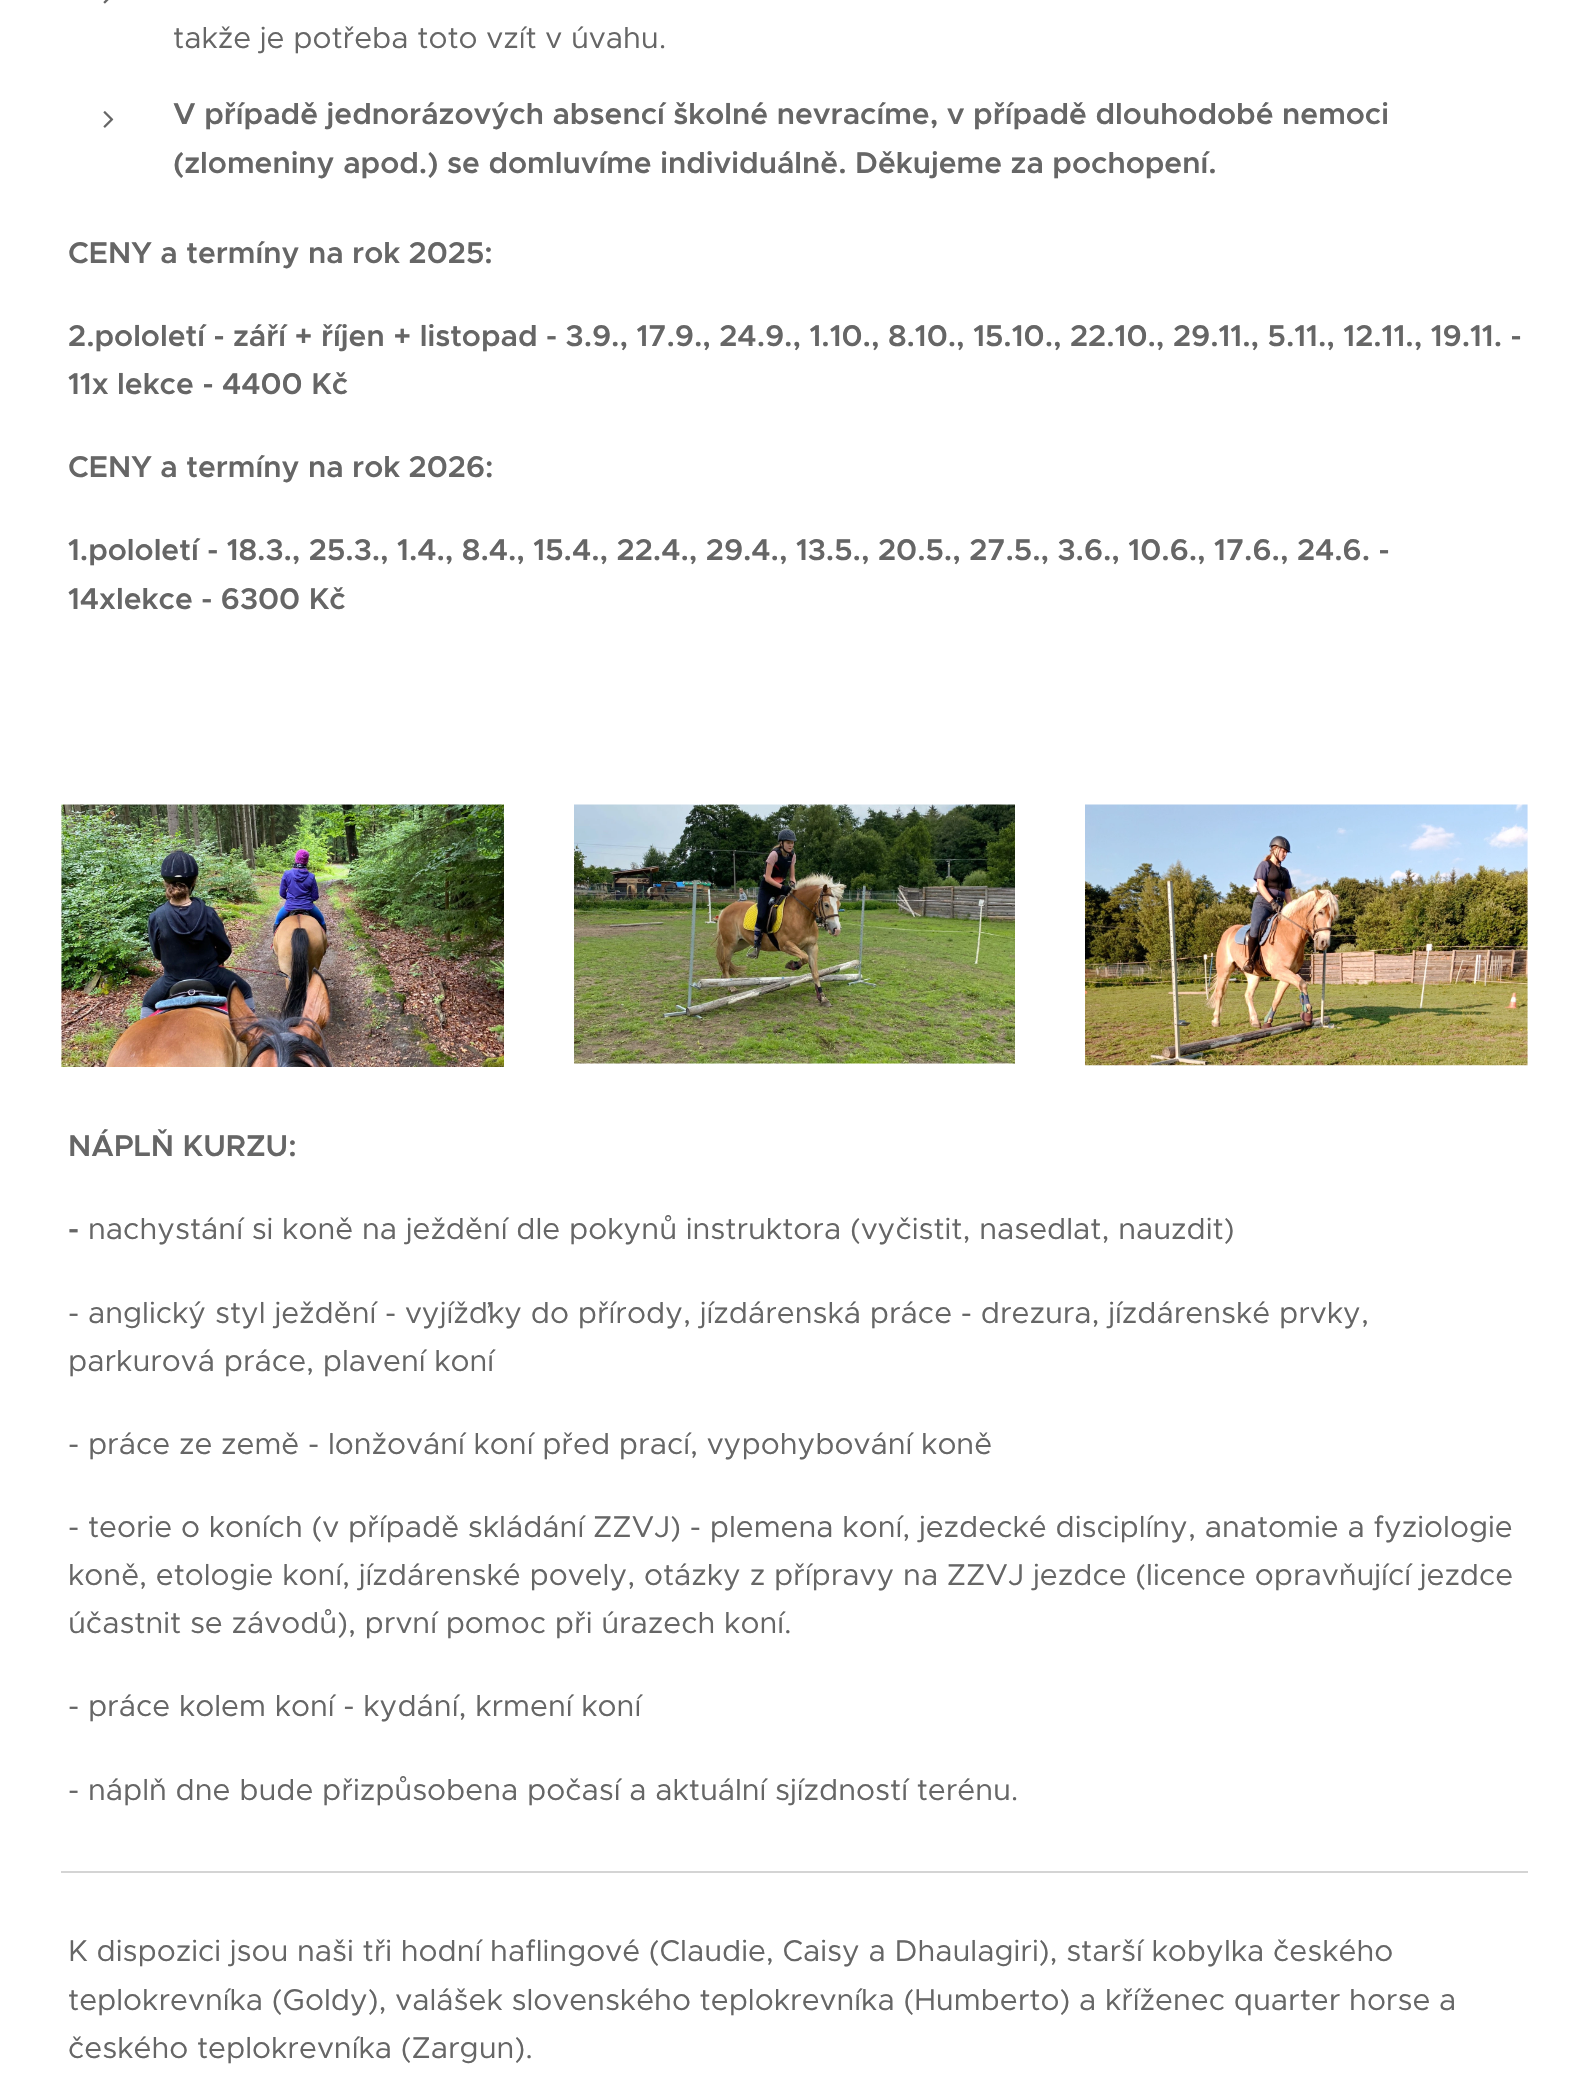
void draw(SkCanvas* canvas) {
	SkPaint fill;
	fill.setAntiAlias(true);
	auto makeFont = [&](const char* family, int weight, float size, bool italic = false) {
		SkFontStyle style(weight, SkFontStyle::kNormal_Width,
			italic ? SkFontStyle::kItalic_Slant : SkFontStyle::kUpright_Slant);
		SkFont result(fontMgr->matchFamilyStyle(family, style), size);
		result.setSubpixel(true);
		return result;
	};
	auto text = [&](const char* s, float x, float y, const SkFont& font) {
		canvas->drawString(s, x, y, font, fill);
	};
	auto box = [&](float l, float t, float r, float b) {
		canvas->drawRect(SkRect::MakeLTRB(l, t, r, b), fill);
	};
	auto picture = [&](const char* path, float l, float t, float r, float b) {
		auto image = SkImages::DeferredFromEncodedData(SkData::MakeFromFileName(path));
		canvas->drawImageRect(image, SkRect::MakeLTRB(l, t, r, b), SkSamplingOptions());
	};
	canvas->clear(0xFFFFFFFF);
	picture("image0.png", 103, 0, 109, 4);
	picture("image1.png", 103, 111, 114, 128);
	picture("image2.png", 61, 804, 504, 1067);
	picture("image3.png", 574, 804, 1015, 1064);
	picture("image4.png", 1085, 804, 1528, 1066);
	fill.setColor(0xFFD4D4D4);
	box(61, 1871, 1528, 1873);
	auto font1 = makeFont("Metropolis", 400, 30.1f);
	fill.setColor(0xFF666666);
	text("takže je potřeba toto vzít v úvahu.", 173, 48, font1);
	auto font2 = makeFont("Metropolis", 600, 30.1f);
	text("V případě jednorázových absencí školné nevracíme, v případě dlouhodobé nemoci", 173, 124, font2);
	text("(zlomeniny apod.) se domluvíme individuálně. Děkujeme za pochopení.", 173, 173, font2);
	text("CENY a termíny na rok 2025:", 68, 263, font2);
	text("2.pololetí - září + říjen + listopad - 3.9., 17.9., 24.9., 1.10., 8.10., 15.10., 22.10., 29.11., 5.11., 12.11., 19.11. -", 68, 346, font2);
	text("11x lekce - 4400 Kč", 68, 394, font2);
	text("CENY a termíny na rok 2026:", 68, 477, font2);
	text("1.pololetí - 18.3., 25.3., 1.4., 8.4., 15.4., 22.4., 29.4., 13.5., 20.5., 27.5., 3.6., 10.6., 17.6., 24.6. -", 68, 560, font2);
	text("14xlekce - 6300 Kč", 68, 609, font2);
	text("NÁPLŇ KURZU:", 68, 1156, font2);
	text("-", 68, 1239, font2);
	text("nachystání si koně na ježdění dle pokynů instruktora (vyčistit, nasedlat, nauzdit)", 88, 1239, font1);
	text("- anglický styl ježdění - vyjížďky do přírody, jízdárenská práce - drezura, jízdárenské prvky,", 68, 1323, font1);
	text("parkurová práce, plavení koní", 68, 1371, font1);
	text("- práce ze země - lonžování koní před prací, vypohybování koně", 68, 1454, font1);
	text("- teorie o koních (v případě skládání ZZVJ) - plemena koní, jezdecké disciplíny, anatomie a fyziologie", 68, 1537, font1);
	text("koně, etologie koní, jízdárenské povely, otázky z přípravy na ZZVJ jezdce (licence opravňující jezdce", 68, 1585, font1);
	text("účastnit se závodů), první pomoc při úrazech koní.", 68, 1633, font1);
	text("- práce kolem koní - kydání, krmení koní", 68, 1716, font1);
	text("- náplň dne bude přizpůsobena počasí a aktuální sjízdností terénu.", 68, 1800, font1);
	text("K dispozici jsou naši tři hodní haflingové (Claudie, Caisy a Dhaulagiri), starší kobylka českého", 68, 1961, font1);
	text("teplokrevníka (Goldy), valášek slovenského teplokrevníka (Humberto) a kříženec quarter horse a", 68, 2010, font1);
	text("českého teplokrevníka (Zargun).", 68, 2058, font1);
}
